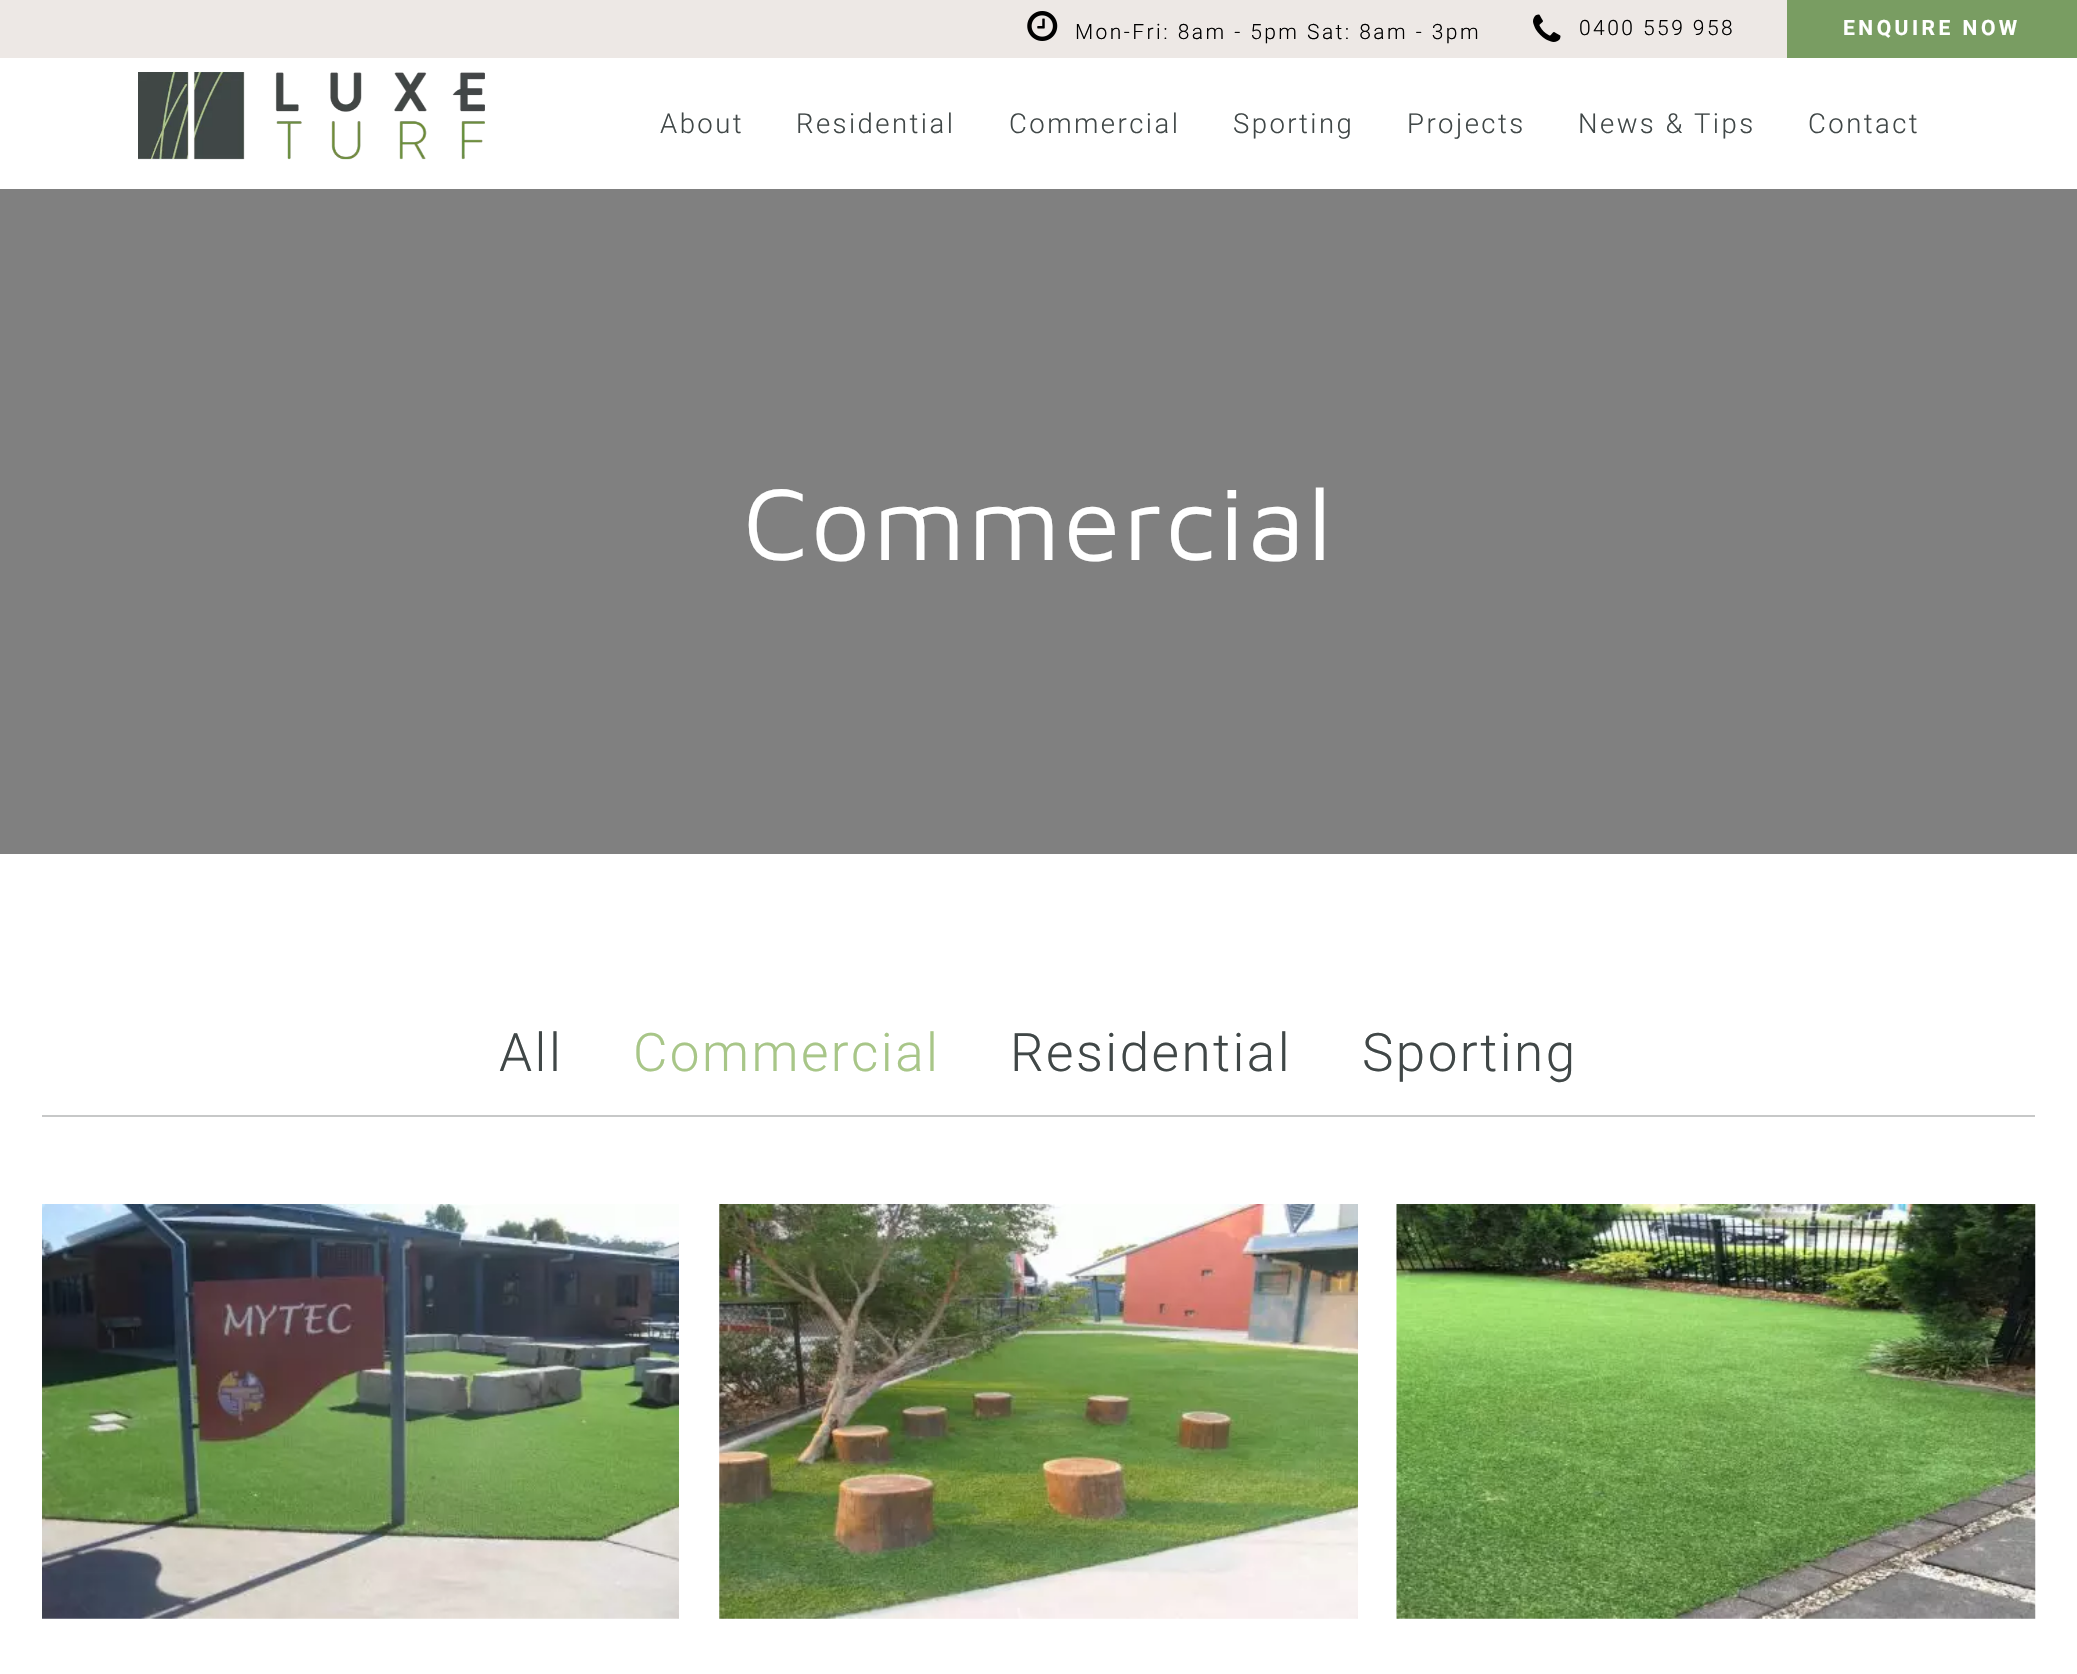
void draw(SkCanvas* canvas) {
	SkPaint fill;
	fill.setAntiAlias(true);
	auto makeFont = [&](const char* family, int weight, float size, bool italic = false) {
		SkFontStyle style(weight, SkFontStyle::kNormal_Width,
			italic ? SkFontStyle::kItalic_Slant : SkFontStyle::kUpright_Slant);
		SkFont result(fontMgr->matchFamilyStyle(family, style), size);
		result.setSubpixel(true);
		return result;
	};
	auto spacedText = [&](const char* s, float x, float y, const SkFont& font, const SkPaint& ink, float letter, float word) {
		std::vector<SkGlyphID> glyphs(font.countText(s, strlen(s), SkTextEncoding::kUTF8));
		std::vector<float> xs(glyphs.size());
		font.textToGlyphs(s, strlen(s), SkTextEncoding::kUTF8, glyphs);
		font.getXPos(glyphs, xs, x);
		float extra = 0;
		for (size_t i = 0; i < glyphs.size(); i++) {
			xs[i] += extra;
			extra += letter + word * (glyphs[i] == font.unicharToGlyph(' '));
		}
		canvas->drawTextBlob(SkTextBlob::MakeFromPosHGlyphs(glyphs, xs, y, font), 0, 0, ink);
	};
	auto box = [&](float l, float t, float r, float b) {
		canvas->drawRect(SkRect::MakeLTRB(l, t, r, b), fill);
	};
	auto picture = [&](const char* path, float l, float t, float r, float b) {
		auto image = SkImages::DeferredFromEncodedData(SkData::MakeFromFileName(path));
		canvas->drawImageRect(image, SkRect::MakeLTRB(l, t, r, b), SkSamplingOptions());
	};
	canvas->clear(0xFFFFFFFF);
	fill.setColor(0xFFEDE8E5);
	box(0, 0, 1787, 58);
	picture("image0.png", 1027, 11, 1058, 41);
	picture("image1.png", 1533, 14, 1561, 42);
	fill.setColor(0xFF799D62);
	box(1787, 0, 2077, 58);
	picture("image2.png", 138, 72, 485, 160);
	fill.setColor(0xFF808080);
	box(0, 189, 2077, 854);
	fill.setColor(0xFFC7C8C8);
	box(42, 1115, 2035, 1117);
	picture("image3.png", 42, 1204, 679, 1619);
	picture("image4.png", 719, 1204, 1358, 1619);
	picture("image5.png", 1396, 1204, 2036, 1619);
	auto font1 = makeFont("Roboto", 300, 21);
	fill.setColor(0xFF000000);
	spacedText("Mon-Fri: 8am - 5pm Sat: 8am - 3pm", 1075, 39, font1, fill, 2.45f, 0);
	spacedText("0400 559 958", 1579, 35, font1, fill, 2.45f, 0);
	auto font2 = makeFont("Roboto", 700, 21);
	fill.setColor(0xFFFFFFFF);
	spacedText("ENQUIRE NOW", 1843, 35, font2, fill, 3.5f, 0);
	auto font3 = makeFont("Roboto", 300, 27.5f);
	fill.setColor(0xFF404747);
	spacedText("About", 660, 133, font3, fill, 2.45f, 0);
	spacedText("Residential", 796, 133, font3, fill, 2.45f, 0);
	spacedText("Commercial", 1009, 133, font3, fill, 2.45f, 0);
	spacedText("Sporting", 1233, 133, font3, fill, 2.45f, 0);
	spacedText("Projects", 1407, 133, font3, fill, 2.45f, 0);
	spacedText("News & Tips", 1578, 133, font3, fill, 2.45f, 0);
	spacedText("Contact", 1808, 133, font3, fill, 2.45f, 0);
	auto font4 = makeFont("Maven Pro", 400, 105);
	fill.setColor(0xFFFFFFFF);
	spacedText("Commercial", 743, 560, font4, fill, 2.45f, 0);
	auto font5 = makeFont("Roboto", 300, 53);
	fill.setColor(0xFF404747);
	spacedText("All", 499, 1071, font5, fill, 2.45f, 0);
	fill.setColor(0xFFA8C688);
	spacedText("Commercial", 633, 1071, font5, fill, 2.45f, 0);
	fill.setColor(0xFF404747);
	spacedText("Residential", 1010, 1071, font5, fill, 2.45f, 0);
	spacedText("Sporting", 1362, 1071, font5, fill, 2.45f, 0);
}
